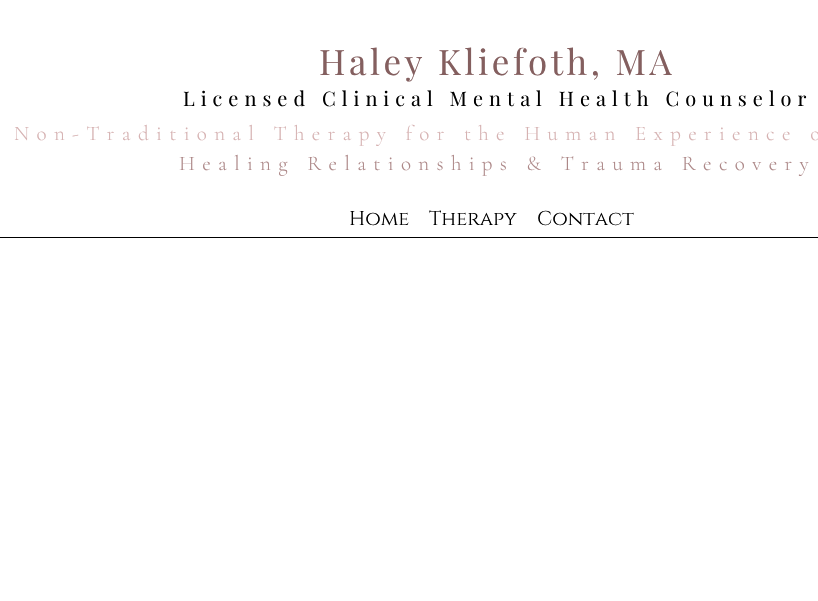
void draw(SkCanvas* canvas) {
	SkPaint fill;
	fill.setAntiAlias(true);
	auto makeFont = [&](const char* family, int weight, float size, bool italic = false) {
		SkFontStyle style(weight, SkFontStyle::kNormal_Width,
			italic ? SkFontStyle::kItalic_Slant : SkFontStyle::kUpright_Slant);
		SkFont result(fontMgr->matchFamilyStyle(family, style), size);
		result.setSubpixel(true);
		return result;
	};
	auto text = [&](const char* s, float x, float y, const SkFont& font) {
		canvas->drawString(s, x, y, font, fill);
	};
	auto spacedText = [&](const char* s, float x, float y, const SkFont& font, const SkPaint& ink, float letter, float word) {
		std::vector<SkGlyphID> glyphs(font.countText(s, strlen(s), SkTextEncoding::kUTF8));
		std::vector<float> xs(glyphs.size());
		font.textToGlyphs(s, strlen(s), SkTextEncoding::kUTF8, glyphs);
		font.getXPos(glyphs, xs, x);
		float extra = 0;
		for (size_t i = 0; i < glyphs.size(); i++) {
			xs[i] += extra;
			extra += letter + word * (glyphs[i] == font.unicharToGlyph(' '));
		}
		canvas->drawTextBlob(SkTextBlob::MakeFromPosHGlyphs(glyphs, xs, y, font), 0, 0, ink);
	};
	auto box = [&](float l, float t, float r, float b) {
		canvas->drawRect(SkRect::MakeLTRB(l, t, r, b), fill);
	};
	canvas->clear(0xFFFFFFFF);
	fill.setColor(0xFF000000);
	box(0, 237, 818, 238);
	auto font1 = makeFont("Playfair Display", 400, 35);
	fill.setColor(0xFF845F5F);
	spacedText("Haley Kliefoth, MA", 319, 75, font1, fill, 3.5f, 0);
	auto font2 = makeFont("Playfair Display", 400, 20);
	fill.setColor(0xFF000000);
	spacedText("Licensed Clinical Mental Health Counselor", 183, 106, font2, fill, 6, 0);
	auto font3 = makeFont("Cormorant Garamond", 300, 21);
	fill.setColor(0xFFD6B2B2);
	spacedText("Non-Traditional Therapy for the Human Experience o", 14, 140, font3, fill, 7.35f, 0);
	fill.setColor(0xFFAD8888);
	spacedText("Healing Relationships & Trauma Recovery", 179, 170, font3, fill, 7.35f, 0);
	auto font4 = makeFont("Cinzel", 400, 20);
	fill.setColor(0xFF000000);
	text("Home", 349, 225, font4);
	text("Therapy", 429, 225, font4);
	text("Contact", 537, 225, font4);
}
